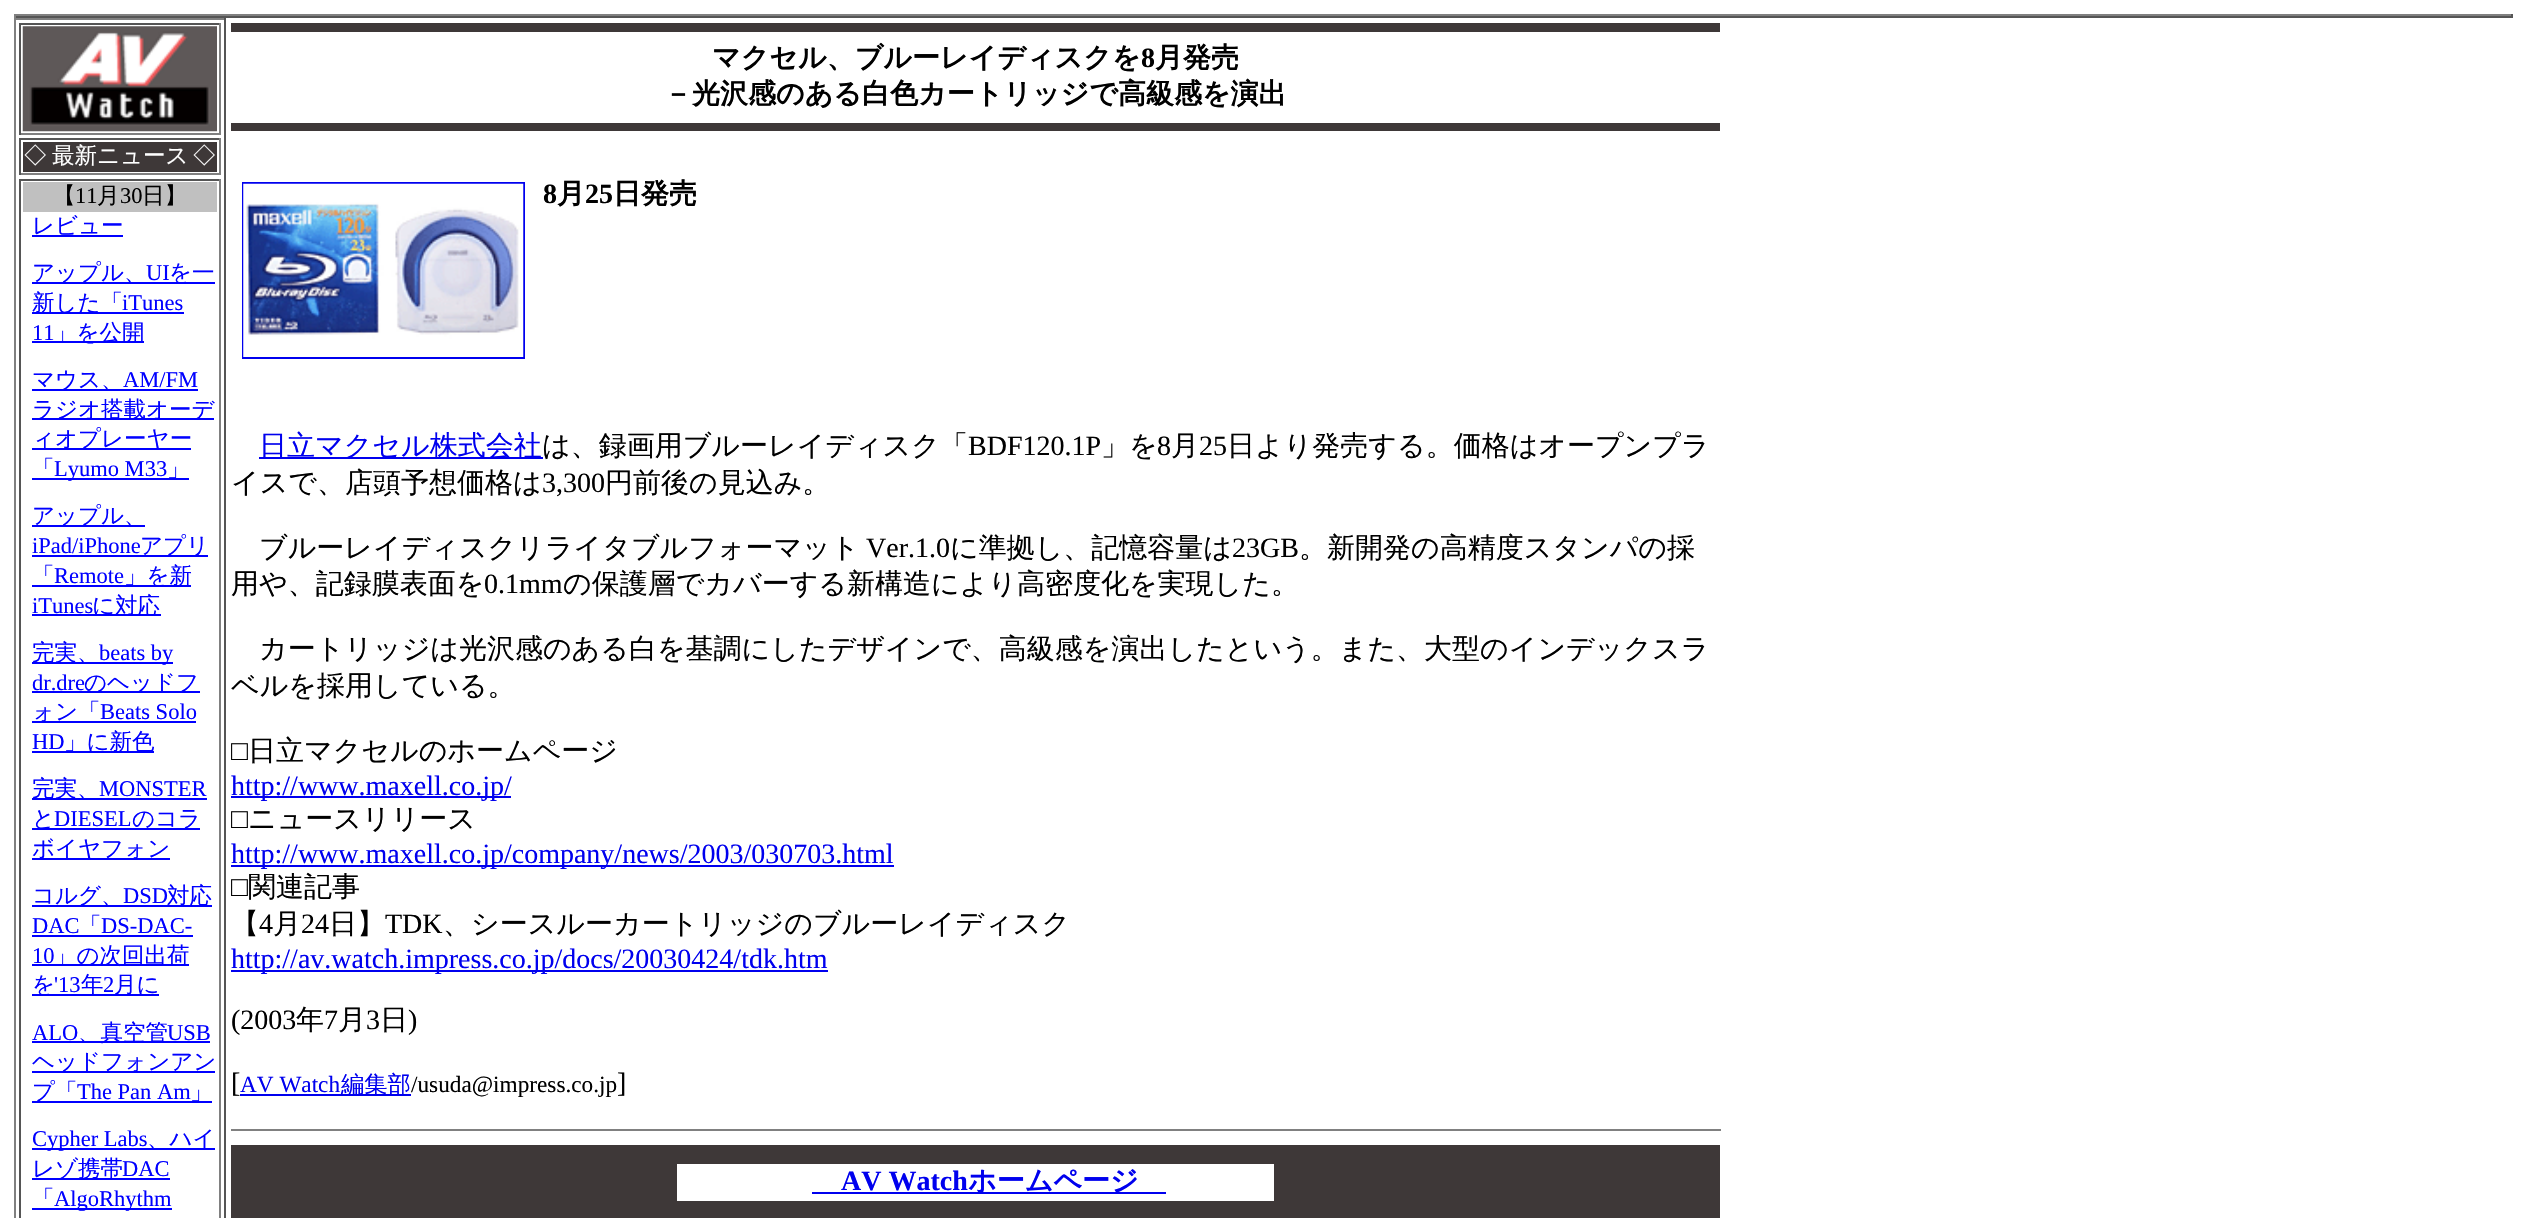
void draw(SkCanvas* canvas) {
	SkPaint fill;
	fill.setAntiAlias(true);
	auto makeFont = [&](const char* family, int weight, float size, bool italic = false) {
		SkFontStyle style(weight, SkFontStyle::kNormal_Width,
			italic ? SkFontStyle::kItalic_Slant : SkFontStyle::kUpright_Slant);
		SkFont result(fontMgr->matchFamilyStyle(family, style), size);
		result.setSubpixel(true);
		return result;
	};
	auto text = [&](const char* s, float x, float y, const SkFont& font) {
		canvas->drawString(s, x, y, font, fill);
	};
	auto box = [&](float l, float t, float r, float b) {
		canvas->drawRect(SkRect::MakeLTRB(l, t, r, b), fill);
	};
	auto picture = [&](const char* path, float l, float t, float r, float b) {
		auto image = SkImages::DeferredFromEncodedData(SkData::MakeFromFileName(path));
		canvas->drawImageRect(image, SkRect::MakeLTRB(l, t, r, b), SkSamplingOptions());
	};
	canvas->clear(0xFFFFFFFF);
	fill.setColor(0xFF808080);
	box(14, 14, 2513, 16);
	fill.setColor(0xFF555555);
	box(2511, 14, 2513, 18);
	box(14, 16, 2513, 18);
	fill.setColor(0xFF808080);
	box(14, 14, 16, 18);
	box(14, 18, 226, 20);
	fill.setColor(0xFF555555);
	box(224, 18, 226, 1218);
	fill.setColor(0xFF808080);
	box(14, 18, 16, 1218);
	fill.setColor(0xFF555555);
	box(19, 23, 221, 25);
	fill.setColor(0xFF808080);
	box(219, 23, 221, 135);
	box(19, 133, 221, 135);
	fill.setColor(0xFF555555);
	box(19, 23, 21, 135);
	picture("image0.png", 22, 26, 217, 132);
	box(19, 138, 221, 140);
	fill.setColor(0xFF808080);
	box(219, 138, 221, 175);
	box(19, 173, 221, 175);
	fill.setColor(0xFF555555);
	box(19, 138, 21, 175);
	fill.setColor(0xFF3E3838);
	box(23, 142, 217, 172);
	fill.setColor(0xFF555555);
	box(19, 179, 221, 181);
	fill.setColor(0xFF808080);
	box(219, 179, 221, 1218);
	fill.setColor(0xFF555555);
	box(19, 179, 21, 1218);
	fill.setColor(0xFFC0C0C0);
	box(23, 182, 217, 212);
	fill.setColor(0xFF0000FF);
	box(32, 235, 123, 237);
	box(32, 282, 215, 284);
	box(32, 312, 184, 314);
	box(32, 341, 144, 343);
	box(32, 389, 198, 391);
	box(32, 418, 214, 420);
	box(32, 448, 191, 450);
	box(32, 478, 189, 480);
	box(32, 525, 145, 527);
	box(32, 555, 208, 557);
	box(32, 585, 191, 587);
	box(32, 614, 161, 616);
	box(32, 662, 173, 664);
	box(32, 691, 200, 693);
	box(32, 721, 196, 723);
	box(32, 751, 154, 753);
	box(32, 798, 207, 800);
	box(32, 828, 200, 830);
	box(32, 858, 170, 860);
	box(32, 905, 212, 907);
	box(32, 935, 193, 937);
	box(32, 964, 189, 966);
	box(32, 994, 159, 996);
	box(32, 1041, 210, 1043);
	box(32, 1071, 215, 1073);
	box(32, 1101, 212, 1103);
	box(32, 1148, 215, 1150);
	box(32, 1178, 170, 1180);
	box(32, 1208, 172, 1210);
	fill.setColor(0xFF3E3838);
	box(231, 23, 1720, 32);
	box(231, 123, 1720, 131);
	fill.setStyle(SkPaint::kStroke_Style);
	fill.setStrokeWidth(2);
	fill.setColor(0xFF0000EE);
	canvas->drawRect(SkRect::MakeLTRB(243, 183, 524, 358), fill);
	picture("image1.png", 243, 183, 524, 357);
	fill.setStyle(SkPaint::kFill_Style);
	box(259, 457, 543, 459);
	box(231, 796, 511, 798);
	box(231, 865, 894, 867);
	box(231, 970, 828, 972);
	box(240, 1094, 411, 1096);
	fill.setColor(0xFF808080);
	box(231, 1129, 1721, 1131);
	fill.setColor(0xFF3E3838);
	box(231, 1145, 1720, 1164);
	box(231, 1164, 677, 1201);
	fill.setColor(0xFF0000EE);
	box(812, 1192, 1166, 1194);
	fill.setColor(0xFF3E3838);
	box(1274, 1164, 1720, 1201);
	box(231, 1201, 1720, 1218);
	auto font1 = makeFont("WenQuanYi Zen Hei", 500, 22.5f);
	fill.setColor(0xFFFFFFFF);
	text("◇", 24, 163, font1);
	text("最新ニュース", 52, 163, font1);
	text("◇", 193, 163, font1);
	fill.setColor(0xFF000000);
	text("【", 53, 203, font1);
	auto font2 = makeFont("Liberation Serif", 400, 22.5f);
	text("11", 75, 203, font2);
	text("月", 97, 203, font1);
	text("30", 120, 203, font2);
	text("日】", 142, 203, font1);
	fill.setColor(0xFF0000FF);
	text("レビュー", 32, 233, font1);
	text("アップル、", 32, 280, font1);
	text("UI", 146, 280, font2);
	text("を一", 169, 280, font1);
	text("新した「", 32, 310, font1);
	text("iTunes", 122, 310, font2);
	text("11", 32, 340, font2);
	text("」を公開", 54, 340, font1);
	text("マウス、", 32, 387, font1);
	text("AM/FM", 123, 387, font2);
	text("ラジオ搭載オーデ", 32, 417, font1);
	text("ィオプレーヤー", 32, 446, font1);
	text("「", 32, 476, font1);
	text("Lyumo M33", 54, 476, font2);
	text("」", 167, 476, font1);
	text("アップル、", 32, 523, font1);
	text("iPad/iPhone", 32, 553, font2);
	text("アプリ", 140, 553, font1);
	text("「", 32, 583, font1);
	text("Remote", 54, 583, font2);
	text("」を新", 124, 583, font1);
	text("iTunes", 32, 613, font2);
	text("に対応", 92, 613, font1);
	text("完実、", 32, 660, font1);
	text("beats by", 99, 660, font2);
	text("dr.dre", 32, 690, font2);
	text("のヘッドフ", 84, 690, font1);
	text("ォン「", 32, 719, font1);
	text("Beats Solo", 100, 719, font2);
	text("HD", 32, 749, font2);
	text("」に新色", 64, 749, font1);
	text("完実、", 32, 796, font1);
	text("MONSTER", 99, 796, font2);
	text("と", 32, 826, font1);
	text("DIESEL", 54, 826, font2);
	text("のコラ", 132, 826, font1);
	text("ボイヤフォン", 32, 856, font1);
	text("コルグ、", 32, 903, font1);
	text("DSD", 123, 903, font2);
	text("対応", 167, 903, font1);
	text("DAC", 32, 933, font2);
	text("「", 79, 933, font1);
	text("DS-DAC-", 101, 933, font2);
	text("10", 32, 963, font2);
	text("」の次回出荷", 54, 963, font1);
	text("を", 32, 992, font1);
	text("'13", 54, 992, font2);
	text("年", 81, 992, font1);
	text("2", 103, 992, font2);
	text("月に", 114, 992, font1);
	text("ALO", 32, 1040, font2);
	text("、真空管", 78, 1040, font1);
	text("USB", 167, 1040, font2);
	text("ヘッドフォンアン", 32, 1069, font1);
	text("プ「", 32, 1099, font1);
	text("The Pan Am", 77, 1099, font2);
	text("」", 190, 1099, font1);
	text("Cypher Labs", 32, 1146, font2);
	text("、ハイ", 147, 1146, font1);
	text("レゾ携帯", 32, 1176, font1);
	text("DAC", 122, 1176, font2);
	text("「", 32, 1206, font1);
	text("AlgoRhythm", 54, 1206, font2);
	auto font3 = makeFont("WenQuanYi Zen Hei", 700, 28);
	fill.setColor(0xFF000000);
	text("マクセル、ブルーレイディスクを", 712, 67, font3);
	auto font4 = makeFont("Liberation Serif", 700, 28);
	text("8", 1141, 67, font4);
	text("月発売", 1155, 67, font3);
	text("－光沢感のある白色カートリッジで高級感を演出", 664, 103, font3);
	text("8", 543, 203, font4);
	text("月", 557, 203, font3);
	text("25", 585, 203, font4);
	text("日発売", 613, 203, font3);
	auto font5 = makeFont("WenQuanYi Zen Hei", 500, 28);
	fill.setColor(0xFF0000EE);
	text("日立マクセル株式会社", 259, 455, font5);
	fill.setColor(0xFF000000);
	text("は、録画用ブルーレイディスク「", 542, 455, font5);
	auto font6 = makeFont("Liberation Serif", 400, 28);
	text("BDF120.1P", 968, 455, font6);
	text("」を", 1101, 455, font5);
	text("8", 1157, 455, font6);
	text("月", 1171, 455, font5);
	text("25", 1199, 455, font6);
	text("日より発売する。価格はオープンプラ", 1227, 455, font5);
	text("イスで、店頭予想価格は", 231, 492, font5);
	text("3,300", 542, 492, font6);
	text("円前後の見込み。", 605, 492, font5);
	text("ブルーレイディスクリライタブルフォーマット", 259, 557, font5);
	text("Ver.1.0", 866, 557, font6);
	text("に準拠し、記憶容量は", 950, 557, font5);
	text("23GB", 1232, 557, font6);
	text("。新開発の高精度スタンパの採", 1299, 557, font5);
	text("用や、記録膜表面を", 231, 593, font5);
	text("0.1mm", 484, 593, font6);
	text("の保護層でカバーする新構造により高密度化を実現した。", 563, 593, font5);
	text("カートリッジは光沢感のある白を基調にしたデザインで、高級感を演出したという。また、大型のインデックスラ", 259, 658, font5);
	text("ベルを採用している。", 231, 695, font5);
	text("□", 231, 760, font6);
	text("日立マクセルのホームページ", 248, 760, font5);
	fill.setColor(0xFF0000EE);
	text("http://www.maxell.co.jp/", 231, 795, font6);
	fill.setColor(0xFF000000);
	text("□", 231, 828, font6);
	text("ニュースリリース", 248, 828, font5);
	fill.setColor(0xFF0000EE);
	text("http://www.maxell.co.jp/company/news/2003/030703.html", 231, 863, font6);
	fill.setColor(0xFF000000);
	text("□", 231, 896, font6);
	text("関連記事", 248, 896, font5);
	text("【", 231, 933, font5);
	text("4", 259, 933, font6);
	text("月", 273, 933, font5);
	text("24", 301, 933, font6);
	text("日】", 329, 933, font5);
	text("TDK", 385, 933, font6);
	text("、シースルーカートリッジのブルーレイディスク", 443, 933, font5);
	fill.setColor(0xFF0000EE);
	text("http://av.watch.impress.co.jp/docs/20030424/tdk.htm", 231, 968, font6);
	fill.setColor(0xFF000000);
	text("(2003", 231, 1029, font6);
	text("年", 296, 1029, font5);
	text("7", 324, 1029, font6);
	text("月", 338, 1029, font5);
	text("3", 366, 1029, font6);
	text("日", 380, 1029, font5);
	text(")", 408, 1029, font6);
	text("[", 231, 1092, font6);
	auto font7 = makeFont("Liberation Serif", 400, 23.25f);
	fill.setColor(0xFF0000EE);
	text("AV Watch", 240, 1092, font7);
	auto font8 = makeFont("WenQuanYi Zen Hei", 500, 23.25f);
	text("編集部", 341, 1092, font8);
	fill.setColor(0xFF000000);
	text("/usuda@impress.co.jp", 411, 1092, font7);
	text("]", 617, 1092, font6);
	fill.setColor(0xFF0000EE);
	text("AV Watch", 841, 1190, font4);
	text("ホームページ", 968, 1190, font3);
}
